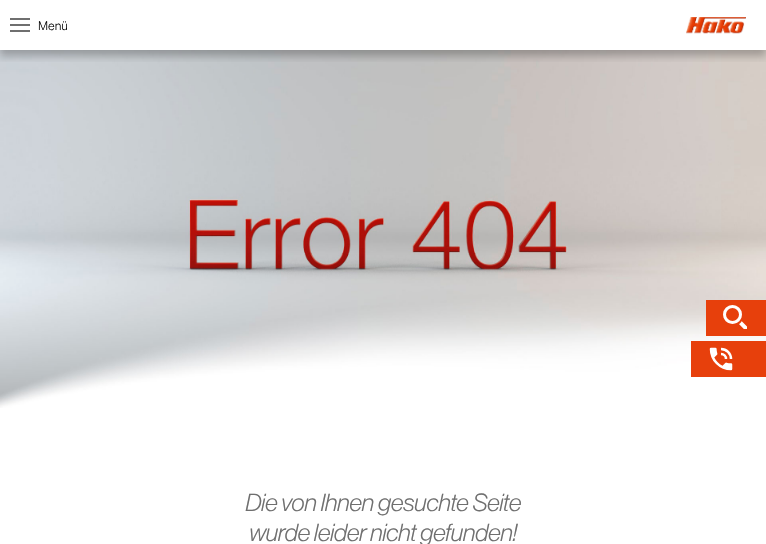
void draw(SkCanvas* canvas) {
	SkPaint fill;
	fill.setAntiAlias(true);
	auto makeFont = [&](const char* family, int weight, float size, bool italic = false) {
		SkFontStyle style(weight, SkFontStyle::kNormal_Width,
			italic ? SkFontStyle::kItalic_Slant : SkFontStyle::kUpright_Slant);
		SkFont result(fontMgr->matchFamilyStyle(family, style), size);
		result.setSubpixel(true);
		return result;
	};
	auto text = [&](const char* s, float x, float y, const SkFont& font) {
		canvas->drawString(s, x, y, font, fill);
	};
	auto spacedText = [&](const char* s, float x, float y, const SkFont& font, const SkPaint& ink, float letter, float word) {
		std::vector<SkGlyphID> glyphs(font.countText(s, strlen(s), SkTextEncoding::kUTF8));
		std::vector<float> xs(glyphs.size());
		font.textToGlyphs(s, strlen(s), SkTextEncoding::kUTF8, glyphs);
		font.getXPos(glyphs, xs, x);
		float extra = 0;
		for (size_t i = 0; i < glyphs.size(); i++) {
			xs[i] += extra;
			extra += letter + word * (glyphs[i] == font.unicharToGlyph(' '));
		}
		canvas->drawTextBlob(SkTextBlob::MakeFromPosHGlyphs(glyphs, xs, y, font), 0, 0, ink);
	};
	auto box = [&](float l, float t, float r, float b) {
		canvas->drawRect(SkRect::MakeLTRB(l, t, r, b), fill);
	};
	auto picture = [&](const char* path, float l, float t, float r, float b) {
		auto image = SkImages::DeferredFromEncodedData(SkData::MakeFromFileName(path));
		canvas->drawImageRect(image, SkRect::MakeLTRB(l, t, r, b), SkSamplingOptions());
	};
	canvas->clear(0xFFFFFFFF);
	picture("image3.png", 0, 50, 766, 408);
	canvas->save();
	canvas->clipRect(SkRect::MakeLTRB(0, 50, 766, 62));
	fill.setColor(0x40000000);
	fill.setMaskFilter(SkMaskFilter::MakeBlur(kNormal_SkBlurStyle, 4));
	canvas->drawRect(SkRect::MakeLTRB(0, 6, 766, 56), fill);
	fill.setMaskFilter(nullptr);
	canvas->restore();
	fill.setColor(0xFF6F6F6F);
	box(10, 18, 30, 20);
	box(10, 24, 30, 26);
	box(10, 30, 30, 32);
	picture("image0.png", 686, 17, 746, 34);
	fill.setColor(0xFFE7400C);
	box(706, 300, 766, 336);
	picture("image1.png", 723, 305, 747, 329);
	box(691, 341, 766, 377);
	picture("image2.png", 709, 347, 733, 371);
	auto font1 = makeFont("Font", 300, 12);
	fill.setColor(0xFF000000);
	text("Menü", 38, 30, font1);
	auto font2 = makeFont("Font", 300, 24, true);
	fill.setColor(0xFF6F6F6F);
	spacedText("Die von Ihnen gesuchte Seite", 245, 511, font2, fill, -1, 0);
	spacedText("wurde leider nicht gefunden!", 249, 541, font2, fill, -1, 0);
}
